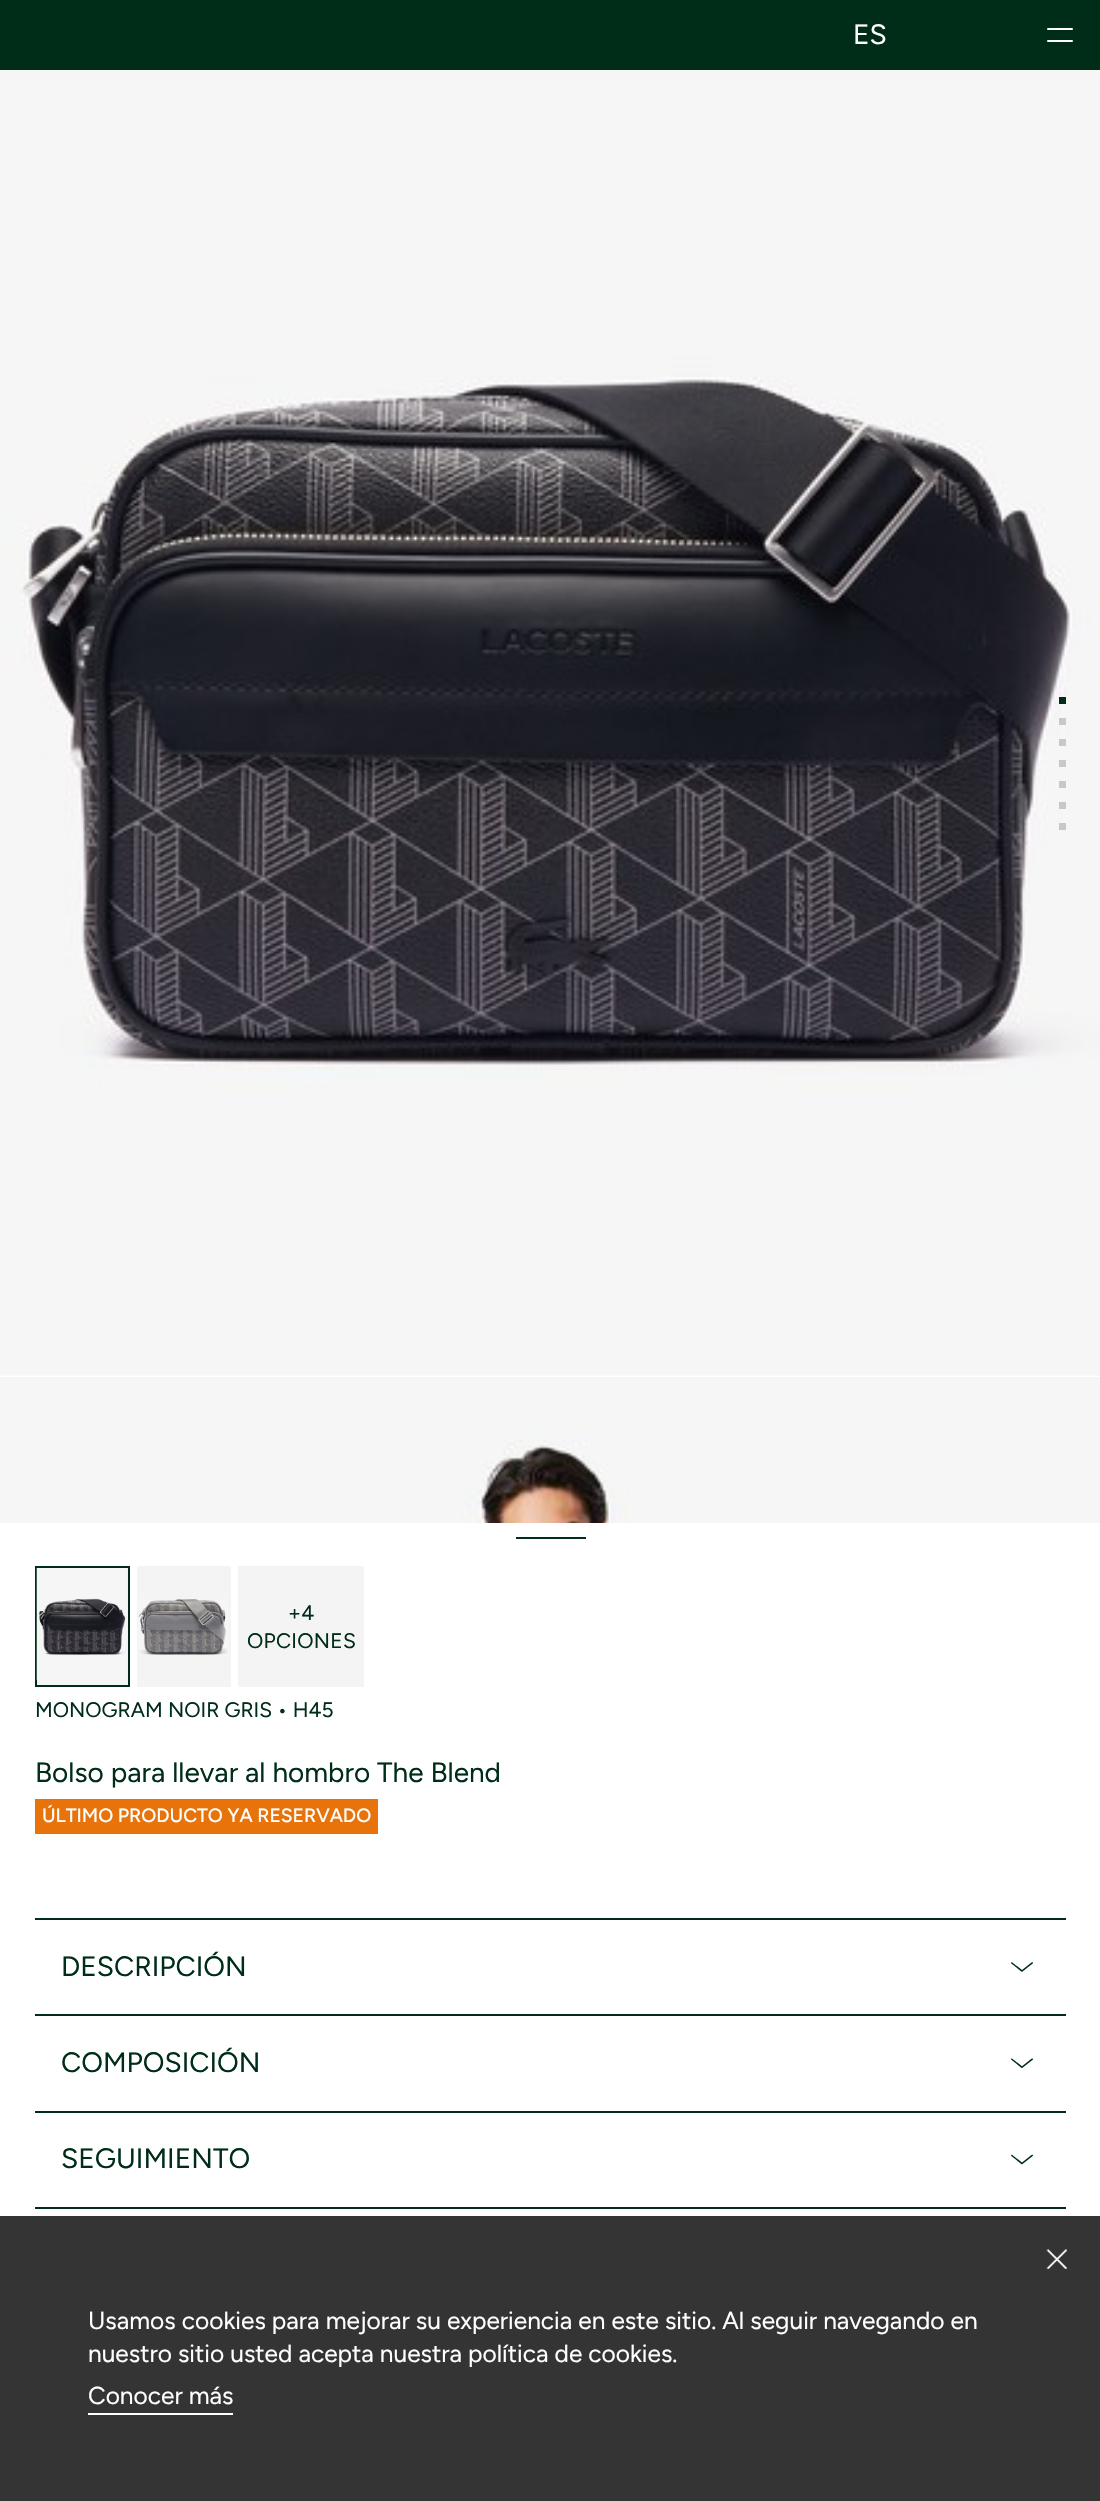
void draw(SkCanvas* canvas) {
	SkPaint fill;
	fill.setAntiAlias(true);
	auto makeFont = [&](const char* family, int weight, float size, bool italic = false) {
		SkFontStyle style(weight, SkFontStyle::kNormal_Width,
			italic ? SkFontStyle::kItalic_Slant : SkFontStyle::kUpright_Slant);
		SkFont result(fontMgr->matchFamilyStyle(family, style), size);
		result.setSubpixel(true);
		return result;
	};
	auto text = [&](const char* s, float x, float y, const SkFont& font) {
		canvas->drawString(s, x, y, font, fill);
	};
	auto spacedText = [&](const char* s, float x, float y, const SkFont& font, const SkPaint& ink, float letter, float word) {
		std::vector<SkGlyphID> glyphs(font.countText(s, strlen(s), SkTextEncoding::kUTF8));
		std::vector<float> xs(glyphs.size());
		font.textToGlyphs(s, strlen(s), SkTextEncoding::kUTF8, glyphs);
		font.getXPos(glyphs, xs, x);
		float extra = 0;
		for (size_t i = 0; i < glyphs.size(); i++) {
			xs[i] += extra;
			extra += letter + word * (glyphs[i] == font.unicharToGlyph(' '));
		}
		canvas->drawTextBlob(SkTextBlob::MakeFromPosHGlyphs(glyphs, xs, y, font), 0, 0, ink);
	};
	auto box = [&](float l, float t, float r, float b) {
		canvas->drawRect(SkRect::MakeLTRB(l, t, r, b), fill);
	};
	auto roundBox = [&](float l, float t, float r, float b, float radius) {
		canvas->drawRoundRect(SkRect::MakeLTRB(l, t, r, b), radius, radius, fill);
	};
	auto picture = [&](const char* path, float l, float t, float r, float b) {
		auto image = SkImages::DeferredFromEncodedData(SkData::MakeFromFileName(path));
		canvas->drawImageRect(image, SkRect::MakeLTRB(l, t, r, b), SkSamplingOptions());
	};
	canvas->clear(0xFFFFFFFF);
	fill.setColor(0xFF343434);
	box(0, 2216, 1100, 2501);
	fill.setColor(0xFF002D18);
	box(0, 0, 1100, 70);
	fill.setColor(0xFFFFFFFF);
	roundBox(1047, 28, 1073, 30, 1);
	roundBox(1047, 40, 1073, 42, 1);
	picture("image0.png", 0, 70, 1100, 1376);
	picture("image1.png", 0, 1377, 1100, 1523);
	fill.setColor(0xFF002D18);
	box(1059, 697, 1066, 704);
	fill.setColor(0xFFC8C8C8);
	box(1059, 718, 1066, 725);
	box(1059, 739, 1066, 746);
	box(1059, 760, 1066, 767);
	box(1059, 781, 1066, 788);
	box(1059, 802, 1066, 809);
	box(1059, 823, 1066, 830);
	fill.setColor(0xFF002D18);
	box(516, 1537, 586, 1539);
	fill.setColor(0xFFF4F4F4);
	canvas->drawRect(SkRect::MakeLTRB(36, 1567, 129, 1686), fill);
	fill.setStyle(SkPaint::kStroke_Style);
	fill.setStrokeWidth(2);
	fill.setColor(0xFF002D18);
	canvas->drawRect(SkRect::MakeLTRB(36, 1567, 129, 1686), fill);
	picture("image2.png", 36, 1568, 126, 1680);
	fill.setStyle(SkPaint::kFill_Style);
	fill.setColor(0xFFF4F4F4);
	box(137, 1566, 231, 1687);
	picture("image3.png", 138, 1599, 228, 1655);
	box(238, 1566, 364, 1687);
	fill.setColor(0xFFE7730A);
	box(35, 1799, 378, 1834);
	fill.setColor(0xFF002D18);
	box(35, 1918, 1066, 1920);
	picture("image4.png", 1011, 1962, 1033, 1972);
	box(35, 2014, 1066, 2016);
	picture("image5.png", 1011, 2058, 1033, 2068);
	box(35, 2111, 1066, 2113);
	picture("image6.png", 1011, 2154, 1033, 2165);
	box(35, 2207, 1066, 2209);
	picture("image7.png", 1046, 2249, 1067, 2269);
	fill.setColor(0xFFFFFFFF);
	box(88, 2413, 233, 2415);
	auto font1 = makeFont("Figtree", 400, 28);
	text("ES", 853, 44, font1);
	auto font2 = makeFont("Figtree", 400, 21);
	fill.setColor(0xFF002D18);
	spacedText("+4", 288, 1620, font2, fill, 0.25f, 0);
	spacedText("OPCIONES", 247, 1648, font2, fill, 0.25f, 0);
	text("MONOGRAM NOIR GRIS • H45", 35, 1717, font2);
	text("Bolso para llevar al hombro The Blend", 35, 1782, font1);
	auto font3 = makeFont("Figtree", 500, 19.25f);
	fill.setColor(0xFFFFFFFF);
	text("ÚLTIMO PRODUCTO YA RESERVADO", 42, 1822, font3);
	fill.setColor(0xFF002D18);
	text("DESCRIPCIÓN", 61, 1976, font1);
	text("COMPOSICIÓN", 61, 2072, font1);
	text("SEGUIMIENTO", 61, 2168, font1);
	auto font4 = makeFont("Figtree", 400, 24.5f);
	fill.setColor(0xFFFFFFFF);
	text("Usamos cookies para mejorar su experiencia en este sitio. Al seguir navegando en", 88, 2329, font4);
	text("nuestro sitio usted acepta nuestra política de cookies.", 88, 2362, font4);
	text("Conocer más", 88, 2404, font4);
}
